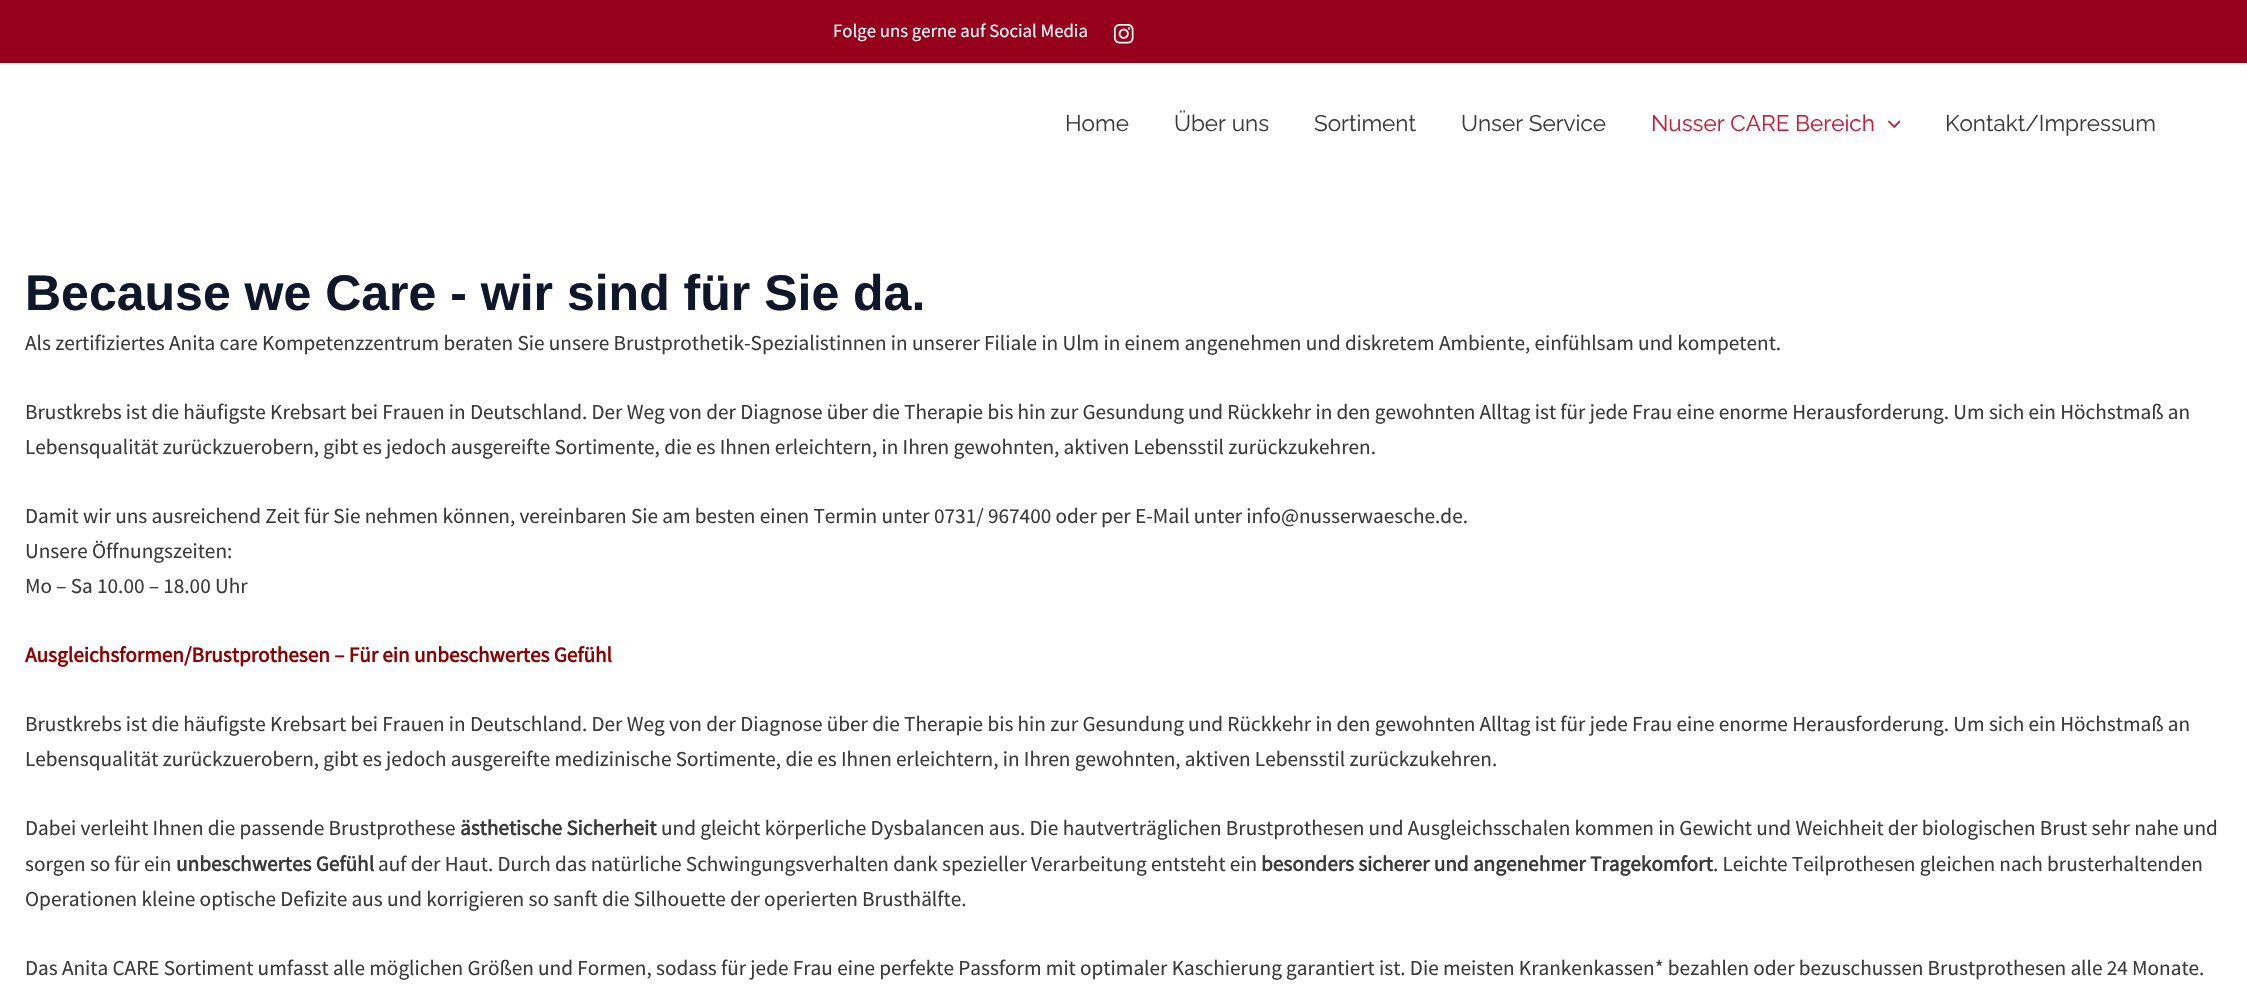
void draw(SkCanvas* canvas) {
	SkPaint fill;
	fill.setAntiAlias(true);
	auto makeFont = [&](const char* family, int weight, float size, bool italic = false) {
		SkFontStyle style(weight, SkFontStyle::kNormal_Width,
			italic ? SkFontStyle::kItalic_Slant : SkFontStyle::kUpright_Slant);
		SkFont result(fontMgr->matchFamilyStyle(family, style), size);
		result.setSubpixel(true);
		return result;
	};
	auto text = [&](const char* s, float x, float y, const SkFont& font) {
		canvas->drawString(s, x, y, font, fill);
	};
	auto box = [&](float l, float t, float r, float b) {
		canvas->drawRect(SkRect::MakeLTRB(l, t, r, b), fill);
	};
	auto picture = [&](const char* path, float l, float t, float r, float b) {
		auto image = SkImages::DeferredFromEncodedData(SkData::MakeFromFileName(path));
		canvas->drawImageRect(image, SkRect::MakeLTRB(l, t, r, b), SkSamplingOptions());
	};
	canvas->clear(0xFFFFFFFF);
	fill.setColor(0xFF96001B);
	box(0, 0, 2247, 63);
	picture("image0.png", 1113, 24, 1134, 44);
	picture("image1.png", 1888, 120, 1900, 128);
	auto font1 = makeFont("Source Sans Pro", 400, 18.75f);
	fill.setColor(0xFFFFFFFF);
	text("Folge uns gerne auf Social Media", 833, 37, font1);
	auto font2 = makeFont("Raleway", 100, 22.5f);
	fill.setColor(0xFF3A3A3A);
	text("Home", 1065, 131, font2);
	text("Über uns", 1174, 131, font2);
	text("Sortiment", 1314, 131, font2);
	text("Unser Service", 1461, 131, font2);
	fill.setColor(0xFFCC1939);
	text("Nusser CARE Bereich", 1651, 131, font2);
	fill.setColor(0xFF3A3A3A);
	text("Kontakt/Impressum", 1945, 131, font2);
	auto font3 = makeFont("Liberation Sans", 700, 50);
	fill.setColor(0xFF0F172A);
	text("Because we Care - wir sind für Sie da.", 25, 310, font3);
	auto font4 = makeFont("Source Sans Pro", 400, 21.25f);
	fill.setColor(0xFF3A3A3A);
	text("Als zertifiziertes Anita care Kompetenzzentrum beraten Sie unsere Brustprothetik-Spezialistinnen in unserer Filiale in Ulm in einem angenehmen und diskretem Ambiente, einfühlsam und kompetent.", 25, 350, font4);
	text("Brustkrebs ist die häufigste Krebsart bei Frauen in Deutschland. Der Weg von der Diagnose über die Therapie bis hin zur Gesundung und Rückkehr in den gewohnten Alltag ist für jede Frau eine enorme Herausforderung. Um sich ein Höchstmaß an", 25, 419, font4);
	text("Lebensqualität zurückzuerobern, gibt es jedoch ausgereifte Sortimente, die es Ihnen erleichtern, in Ihren gewohnten, aktiven Lebensstil zurückzukehren.", 25, 454, font4);
	text("Damit wir uns ausreichend Zeit für Sie nehmen können, vereinbaren Sie am besten einen Termin unter 0731/ 967400 oder per E-Mail unter info@nusserwaesche.de.", 25, 523, font4);
	text("Unsere Öffnungszeiten:", 25, 558, font4);
	text("Mo – Sa 10.00 – 18.00 Uhr", 25, 593, font4);
	auto font5 = makeFont("Source Sans Pro", 700, 21.25f);
	fill.setColor(0xFF900000);
	text("Ausgleichsformen/Brustprothesen – Für ein unbeschwertes Gefühl", 25, 662, font5);
	fill.setColor(0xFF3A3A3A);
	text("Brustkrebs ist die häufigste Krebsart bei Frauen in Deutschland. Der Weg von der Diagnose über die Therapie bis hin zur Gesundung und Rückkehr in den gewohnten Alltag ist für jede Frau eine enorme Herausforderung. Um sich ein Höchstmaß an", 25, 731, font4);
	text("Lebensqualität zurückzuerobern, gibt es jedoch ausgereifte medizinische Sortimente, die es Ihnen erleichtern, in Ihren gewohnten, aktiven Lebensstil zurückzukehren.", 25, 766, font4);
	text("Dabei verleiht Ihnen die passende Brustprothese", 25, 835, font4);
	text("ästhetische Sicherheit", 460, 835, font5);
	text("und gleicht körperliche Dysbalancen aus. Die hautverträglichen Brustprothesen und Ausgleichsschalen kommen in Gewicht und Weichheit der biologischen Brust sehr nahe und", 661, 835, font4);
	text("sorgen so für ein", 25, 871, font4);
	text("unbeschwertes Gefühl", 176, 871, font5);
	text("auf der Haut. Durch das natürliche Schwingungsverhalten dank spezieller Verarbeitung entsteht ein", 378, 871, font4);
	text("besonders sicherer und angenehmer Tragekomfort", 1261, 871, font5);
	text(". Leichte Teilprothesen gleichen nach brusterhaltenden", 1713, 871, font4);
	text("Operationen kleine optische Defizite aus und korrigieren so sanft die Silhouette der operierten Brusthälfte.", 25, 906, font4);
	text("Das Anita CARE Sortiment umfasst alle möglichen Größen und Formen, sodass für jede Frau eine perfekte Passform mit optimaler Kaschierung garantiert ist. Die meisten Krankenkassen* bezahlen oder bezuschussen Brustprothesen alle 24 Monate.", 25, 975, font4);
}
